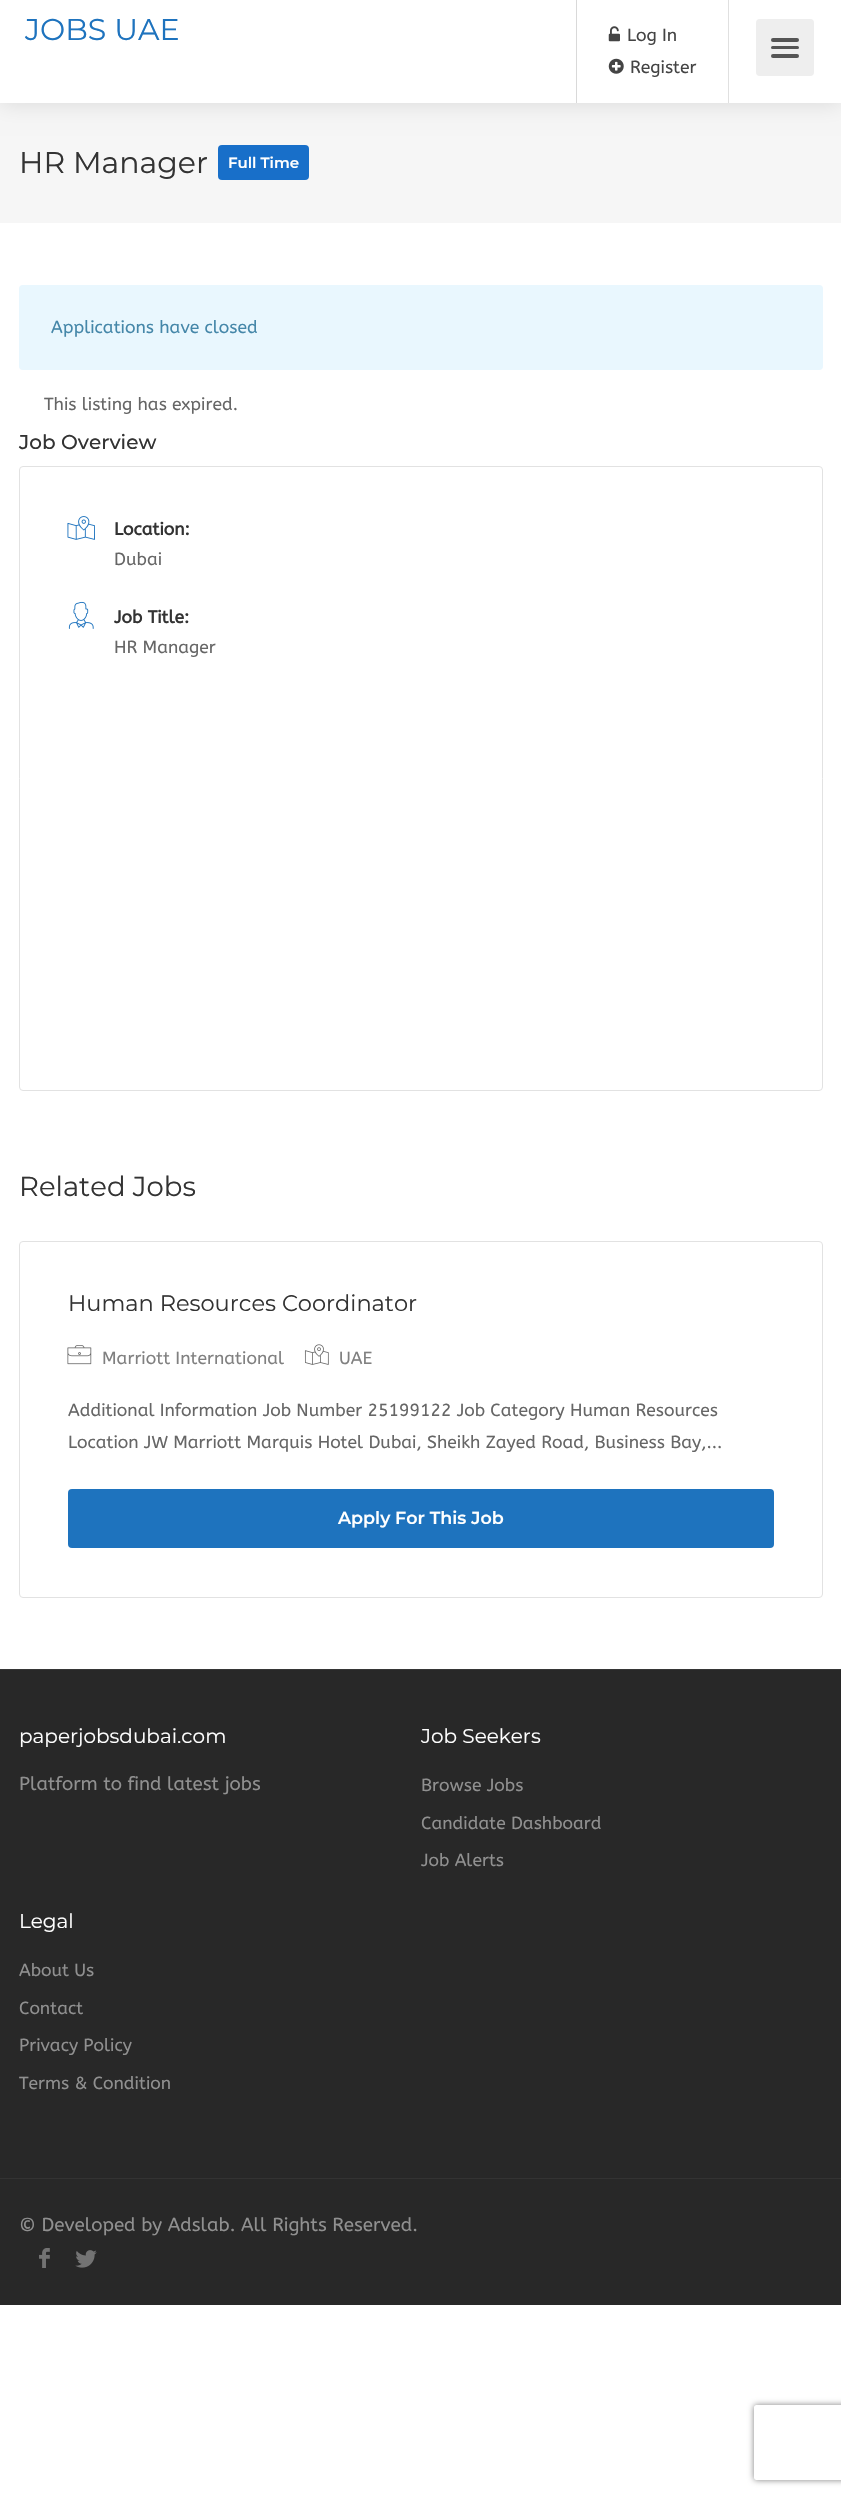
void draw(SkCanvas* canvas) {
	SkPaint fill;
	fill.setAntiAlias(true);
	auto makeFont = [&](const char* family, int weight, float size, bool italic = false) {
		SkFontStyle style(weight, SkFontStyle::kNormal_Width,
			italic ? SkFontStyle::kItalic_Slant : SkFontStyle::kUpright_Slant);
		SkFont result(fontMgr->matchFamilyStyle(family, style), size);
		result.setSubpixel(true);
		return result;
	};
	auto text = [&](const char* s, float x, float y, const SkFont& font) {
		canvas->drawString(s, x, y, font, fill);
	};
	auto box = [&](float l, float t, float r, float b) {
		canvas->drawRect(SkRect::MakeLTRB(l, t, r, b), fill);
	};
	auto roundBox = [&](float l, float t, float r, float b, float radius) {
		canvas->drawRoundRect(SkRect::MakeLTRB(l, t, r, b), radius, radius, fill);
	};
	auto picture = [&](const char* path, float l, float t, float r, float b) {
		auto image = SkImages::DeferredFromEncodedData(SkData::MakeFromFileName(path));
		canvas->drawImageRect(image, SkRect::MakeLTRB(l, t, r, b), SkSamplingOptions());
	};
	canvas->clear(0xFFFFFFFF);
	fill.setColor(0xFFF6F6F6);
	box(0, 103, 841, 223);
	fill.setColor(0x1F000000);
	fill.setMaskFilter(SkMaskFilter::MakeBlur(kNormal_SkBlurStyle, 11));
	canvas->drawRect(SkRect::MakeLTRB(0, 0, 841, 103), fill);
	fill.setMaskFilter(nullptr);
	fill.setColor(0xFFFFFFFF);
	box(0, 0, 841, 103);
	fill.setColor(0xFFE0E0E0);
	box(728, 0, 729, 103);
	fill.setColor(0xFFD9D9D9);
	box(576, 0, 577, 103);
	picture("image0.png", 608, 26, 620, 42);
	picture("image1.png", 608, 58, 624, 74);
	fill.setColor(0xFFEEEEEE);
	roundBox(756, 19, 814, 76, 4);
	fill.setColor(0xFF555555);
	roundBox(771, 54, 799, 58, 2);
	roundBox(771, 38, 799, 42, 2);
	roundBox(771, 46, 799, 49, 1.5f);
	fill.setColor(0xFF186FC9);
	roundBox(218, 145, 309, 180, 4);
	fill.setColor(0xFFE9F7FE);
	roundBox(19, 285, 823, 370, 4);
	fill.setStyle(SkPaint::kStroke_Style);
	fill.setStrokeWidth(1);
	fill.setColor(0xFFE2E2E2);
	canvas->drawRoundRect(SkRect::MakeLTRB(19.5f, 466.5f, 822.5f, 1090.5f), 3.5f, 3.5f, fill);
	picture("image2.png", 67, 516, 95, 540);
	picture("image3.png", 68, 601, 94, 629);
	canvas->drawRoundRect(SkRect::MakeLTRB(19.5f, 1241.5f, 822.5f, 1597.5f), 3.5f, 3.5f, fill);
	picture("image4.png", 67, 1345, 92, 1365);
	picture("image5.png", 304, 1344, 329, 1365);
	fill.setStyle(SkPaint::kFill_Style);
	fill.setColor(0xFF1E73BE);
	roundBox(68, 1489, 774, 1548, 4);
	fill.setColor(0xFF282828);
	box(0, 1670, 841, 2305);
	fill.setColor(0xFF363636);
	box(0, 1669, 841, 1670);
	fill.setColor(0xFF333333);
	box(0, 2178, 841, 2179);
	picture("image6.png", 39, 2248, 50, 2268);
	picture("image7.png", 75, 2250, 97, 2268);
	canvas->save();
	canvas->clipPath(SkPathBuilder(SkPathFillType::kEvenOdd).moveTo(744, 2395).lineTo(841, 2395).lineTo(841, 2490).lineTo(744, 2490).close().moveTo(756.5f, 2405).lineTo(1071.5f, 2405).cubicTo(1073, 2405, 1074, 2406, 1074, 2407.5f).lineTo(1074, 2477.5f).cubicTo(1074, 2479, 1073, 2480, 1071.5f, 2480).lineTo(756.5f, 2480).cubicTo(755, 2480, 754, 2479, 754, 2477.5f).lineTo(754, 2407.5f).cubicTo(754, 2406, 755, 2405, 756.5f, 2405).close().detach(), true);
	fill.setColor(0xFF808080);
	fill.setMaskFilter(SkMaskFilter::MakeBlur(kNormal_SkBlurStyle, 3));
	canvas->drawRoundRect(SkRect::MakeLTRB(754, 2405, 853, 2480), 2.5f, 2.5f, fill);
	fill.setMaskFilter(nullptr);
	canvas->restore();
	auto font1 = makeFont("Montserrat", 400, 30);
	fill.setColor(0xFF1E73BE);
	text("JOBS UAE", 25, 40, font1);
	auto font2 = makeFont("ABeeZee", 400, 17.5f);
	fill.setColor(0xFF444444);
	text("Log In", 627, 41, font2);
	text("Register", 630, 73, font2);
	fill.setColor(0xFF333333);
	text("HR Manager", 19, 173, font1);
	auto font3 = makeFont("Montserrat", 600, 15);
	fill.setColor(0xFFFFFFFF);
	text("Full Time", 228, 168, font3);
	fill.setColor(0xFF4587A9);
	text("Applications have closed", 51, 333, font2);
	fill.setColor(0xFF666666);
	text("This listing has expired.", 44, 410, font2);
	auto font4 = makeFont("Montserrat", 500, 20);
	fill.setColor(0xFF333333);
	text("Job Overview", 19, 449, font4);
	auto font5 = makeFont("ABeeZee", 700, 17.5f);
	text("Location:", 114, 535, font5);
	fill.setColor(0xFF666666);
	text("Dubai", 114, 565, font2);
	fill.setColor(0xFF333333);
	text("Job Title:", 114, 623, font5);
	fill.setColor(0xFF666666);
	text("HR Manager", 114, 653, font2);
	auto font6 = makeFont("Montserrat", 400, 27.5f);
	fill.setColor(0xFF333333);
	text("Related Jobs", 19, 1196, font6);
	auto font7 = makeFont("Montserrat", 400, 22.5f);
	text("Human Resources Coordinator", 68, 1311, font7);
	fill.setColor(0xFF808080);
	text("Marriott International", 102, 1364, font2);
	text("UAE", 339, 1364, font2);
	fill.setColor(0xFF666666);
	text("Additional Information Job Number 25199122 Job Category Human Resources", 68, 1416, font2);
	text("Location JW Marriott Marquis Hotel Dubai, Sheikh Zayed Road, Business Bay,...", 68, 1448, font2);
	auto font8 = makeFont("Montserrat", 600, 17.5f);
	fill.setColor(0xFFFFFFFF);
	text("Apply For This Job", 338, 1524, font8);
	auto font9 = makeFont("Montserrat", 400, 20);
	text("paperjobsdubai.com", 19, 1743, font9);
	auto font10 = makeFont("ABeeZee", 400, 18.75f);
	fill.setColor(0xFF909090);
	text("Platform to find latest jobs", 19, 1790, font10);
	fill.setColor(0xFFFFFFFF);
	text("Job Seekers", 421, 1743, font9);
	fill.setColor(0xFF909090);
	text("Browse Jobs", 421, 1791, font2);
	text("Candidate Dashboard", 421, 1829, font2);
	text("Job Alerts", 421, 1866, font2);
	fill.setColor(0xFFFFFFFF);
	text("Legal", 19, 1928, font9);
	fill.setColor(0xFF909090);
	text("About Us", 19, 1976, font2);
	text("Contact", 19, 2014, font2);
	text("Privacy Policy", 19, 2051, font2);
	text("Terms & Condition", 19, 2089, font2);
	text("© Developed by Adslab. All Rights Reserved.", 19, 2231, font10);
}
